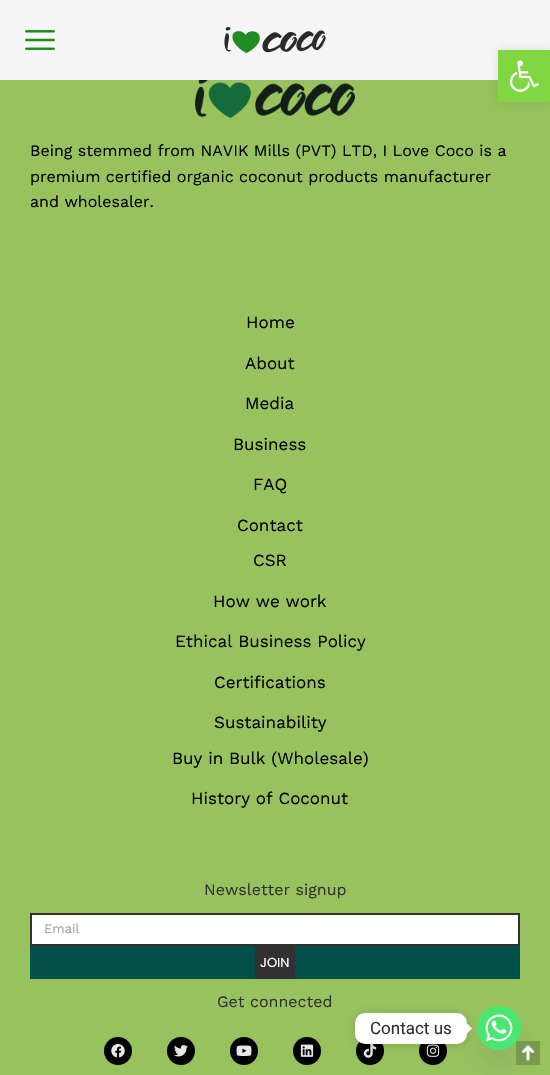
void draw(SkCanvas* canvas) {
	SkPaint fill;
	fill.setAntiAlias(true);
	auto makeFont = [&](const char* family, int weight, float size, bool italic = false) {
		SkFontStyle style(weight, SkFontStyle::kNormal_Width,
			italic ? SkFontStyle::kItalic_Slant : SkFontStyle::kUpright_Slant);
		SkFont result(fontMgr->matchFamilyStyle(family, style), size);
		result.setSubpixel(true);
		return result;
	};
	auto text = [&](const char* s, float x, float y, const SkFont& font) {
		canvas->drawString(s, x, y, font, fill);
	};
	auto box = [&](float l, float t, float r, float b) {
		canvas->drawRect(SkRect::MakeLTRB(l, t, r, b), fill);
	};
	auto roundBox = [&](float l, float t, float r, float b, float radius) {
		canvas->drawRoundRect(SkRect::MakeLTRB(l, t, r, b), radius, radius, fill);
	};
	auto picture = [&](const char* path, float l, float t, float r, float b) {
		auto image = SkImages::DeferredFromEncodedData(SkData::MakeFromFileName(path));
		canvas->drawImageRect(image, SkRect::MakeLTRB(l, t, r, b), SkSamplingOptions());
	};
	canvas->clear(0xFF98C25E);
	fill.setColor(0xFFF5F5F5);
	box(0, 0, 550, 80);
	fill.setColor(0x1A000000);
	fill.setMaskFilter(SkMaskFilter::MakeBlur(kNormal_SkBlurStyle, 5));
	canvas->drawRect(SkRect::MakeLTRB(498, 50, 550, 102), fill);
	fill.setMaskFilter(nullptr);
	fill.setColor(0xFF81D742);
	box(498, 50, 550, 102);
	picture("image0.png", 509, 60, 539, 92);
	picture("image1.png", 25, 30, 55, 50);
	picture("image2.png", 224, 27, 326, 53);
	picture("image3.png", 195, 80, 355, 118);
	fill.setColor(0xFF03504B);
	box(30, 913, 520, 979);
	fill.setColor(0xFFFFFFFF);
	canvas->drawRect(SkRect::MakeLTRB(31, 914, 519, 945), fill);
	fill.setStyle(SkPaint::kStroke_Style);
	fill.setStrokeWidth(2);
	fill.setColor(0xFF313131);
	canvas->drawRect(SkRect::MakeLTRB(31, 914, 519, 945), fill);
	fill.setStyle(SkPaint::kFill_Style);
	box(255, 946, 295, 979);
	fill.setColor(0xFF000000);
	canvas->drawCircle(118, 1051, 14, fill);
	picture("image4.png", 111, 1044, 125, 1058);
	canvas->drawCircle(181, 1051, 14, fill);
	picture("image5.png", 174, 1045, 188, 1057);
	canvas->drawCircle(244, 1051, 14, fill);
	picture("image6.png", 236, 1045, 252, 1056);
	canvas->drawCircle(307, 1051, 14, fill);
	picture("image7.png", 300, 1044, 314, 1057);
	canvas->drawCircle(370, 1051, 14, fill);
	picture("image8.png", 363, 1044, 377, 1058);
	canvas->drawCircle(433, 1051, 14, fill);
	picture("image9.png", 426, 1044, 440, 1057);
	fill.setColor(0xFF7A9B4B);
	box(516, 1041, 540, 1065);
	picture("image10.png", 522, 1045, 534, 1061);
	fill.setColor(0x2949687E);
	fill.setMaskFilter(SkMaskFilter::MakeBlur(kNormal_SkBlurStyle, 12));
	canvas->drawRoundRect(SkRect::MakeLTRB(477, 1022, 521, 1066), 22, 22, fill);
	fill.setMaskFilter(nullptr);
	picture("image11.png", 477, 1006, 521, 1050);
	fill.setColor(0x26000000);
	fill.setMaskFilter(SkMaskFilter::MakeBlur(kNormal_SkBlurStyle, 4));
	canvas->drawRoundRect(SkRect::MakeLTRB(355, 1014, 467, 1045), 10, 10, fill);
	fill.setMaskFilter(nullptr);
	fill.setColor(0xFFFFFFFF);
	roundBox(355, 1013, 467, 1044, 10);
	canvas->drawPath(SkPathBuilder().moveTo(467, 1033.5f).lineTo(467, 1023.5f).lineTo(472, 1028.5f).close().detach(), fill);
	auto font1 = makeFont("Work Sans", 400, 16);
	fill.setColor(0xFF000000);
	text("Being stemmed from NAVIK Mills (PVT) LTD, I Love Coco is a", 30, 156, font1);
	text("premium certified organic coconut products manufacturer", 30, 182, font1);
	text("and wholesaler.", 30, 207, font1);
	auto font2 = makeFont("Work Sans", 400, 17);
	text("Home", 246, 328, font2);
	text("About", 245, 369, font2);
	text("Media", 245, 409, font2);
	text("Business", 233, 450, font2);
	text("FAQ", 253, 490, font2);
	text("Contact", 237, 531, font2);
	text("CSR", 253, 566, font2);
	text("How we work", 213, 607, font2);
	text("Ethical Business Policy", 175, 647, font2);
	text("Certifications", 214, 688, font2);
	text("Sustainability", 214, 728, font2);
	text("Buy in Bulk (Wholesale)", 172, 764, font2);
	text("History of Coconut", 191, 804, font2);
	fill.setColor(0xFF313131);
	text("Newsletter signup", 204, 895, font1);
	auto font3 = makeFont("Work Sans", 400, 13);
	fill.setColor(0xFFA3A3A3);
	text("Email", 44, 933, font3);
	auto font4 = makeFont("Poppins", 400, 13);
	fill.setColor(0xFFFFFFFF);
	text("JOIN", 260, 967, font4);
	fill.setColor(0xFF313131);
	text("Get connected", 217, 1007, font1);
	auto font5 = makeFont("Roboto", 400, 17);
	text("Contact us", 370, 1034, font5);
}
